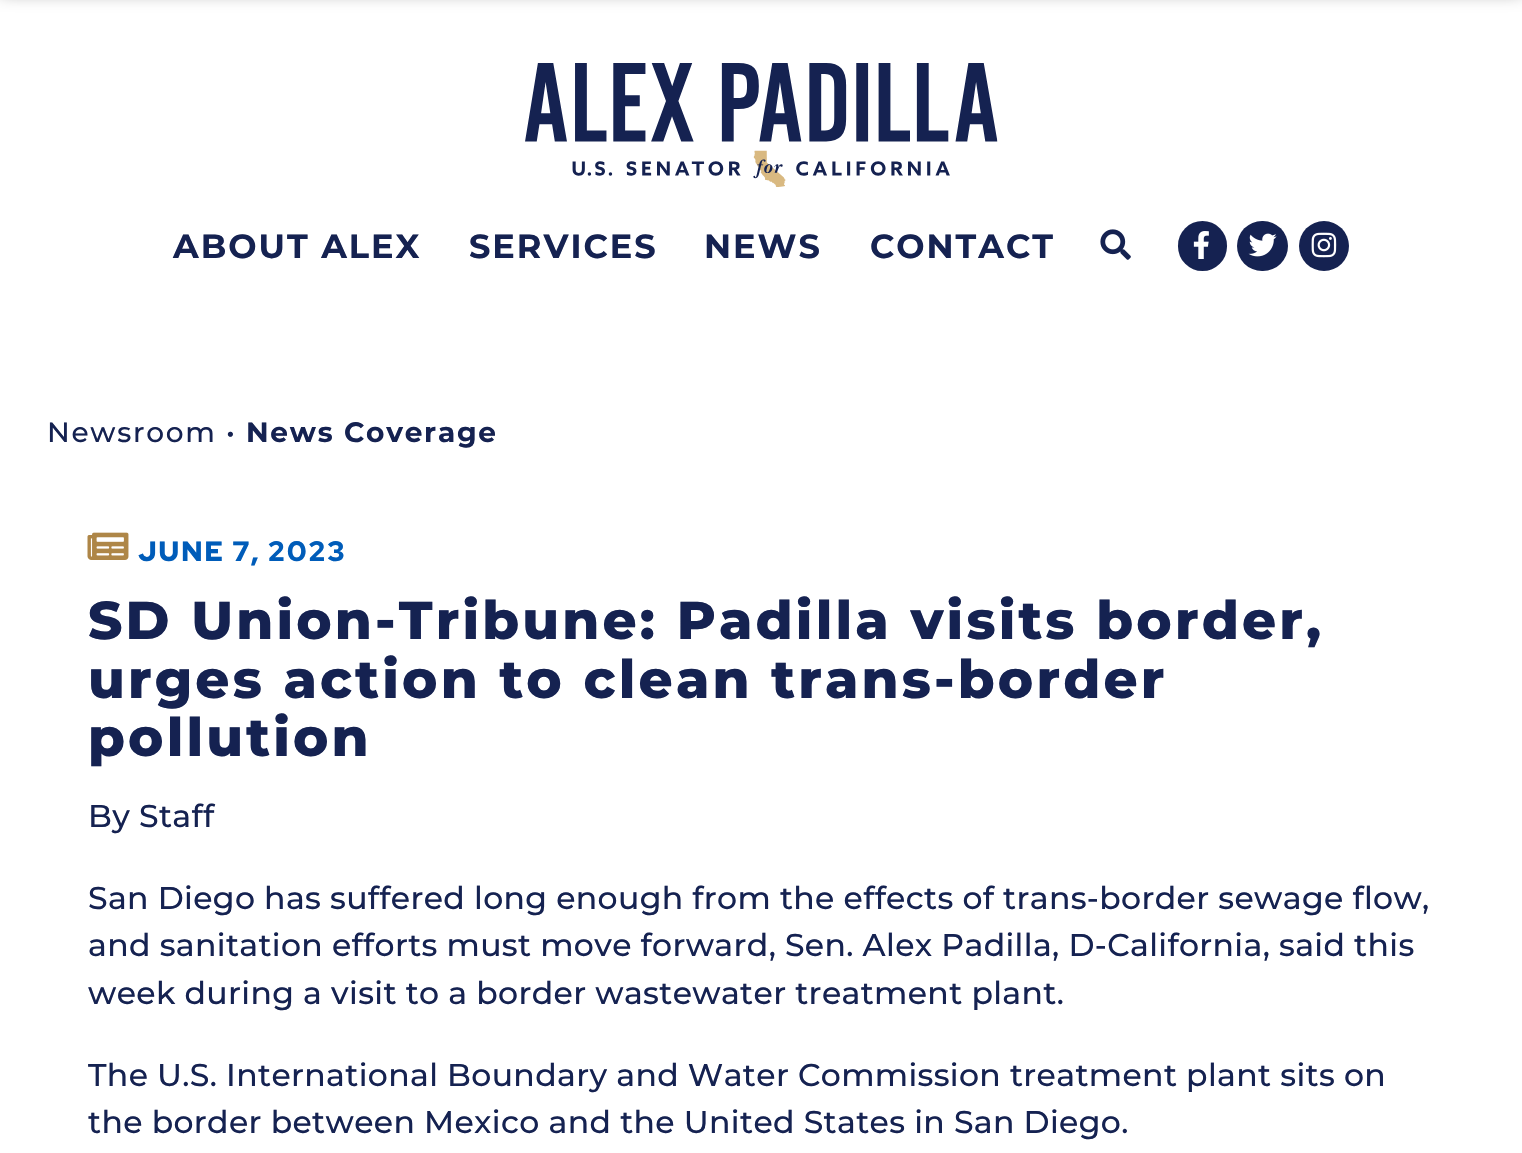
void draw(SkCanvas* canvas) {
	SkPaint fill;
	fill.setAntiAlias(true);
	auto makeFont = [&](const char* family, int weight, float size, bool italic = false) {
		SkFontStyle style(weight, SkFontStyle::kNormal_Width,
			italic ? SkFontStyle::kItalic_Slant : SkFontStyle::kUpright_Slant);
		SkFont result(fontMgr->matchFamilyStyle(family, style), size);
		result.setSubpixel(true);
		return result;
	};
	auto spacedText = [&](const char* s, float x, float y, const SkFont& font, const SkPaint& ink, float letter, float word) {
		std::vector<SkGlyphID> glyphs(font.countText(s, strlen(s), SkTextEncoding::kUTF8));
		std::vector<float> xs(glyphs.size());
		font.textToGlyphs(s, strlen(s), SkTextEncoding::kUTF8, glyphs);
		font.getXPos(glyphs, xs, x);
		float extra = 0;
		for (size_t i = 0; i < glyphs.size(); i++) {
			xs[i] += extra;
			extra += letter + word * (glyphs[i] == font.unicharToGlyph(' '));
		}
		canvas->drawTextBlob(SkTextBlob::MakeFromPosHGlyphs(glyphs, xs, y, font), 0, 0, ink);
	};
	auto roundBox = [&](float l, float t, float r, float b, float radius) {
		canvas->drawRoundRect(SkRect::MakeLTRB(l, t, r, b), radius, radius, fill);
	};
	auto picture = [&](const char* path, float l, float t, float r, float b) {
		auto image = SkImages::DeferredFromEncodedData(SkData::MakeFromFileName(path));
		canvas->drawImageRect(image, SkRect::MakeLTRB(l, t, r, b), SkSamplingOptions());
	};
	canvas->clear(0xFFFFFFFF);
	fill.setColor(0x80000000);
	fill.setMaskFilter(SkMaskFilter::MakeBlur(kNormal_SkBlurStyle, 9));
	canvas->drawRect(SkRect::MakeLTRB(0, -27, 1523, -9), fill);
	fill.setMaskFilter(nullptr);
	picture("image0.png", 525, 63, 998, 187);
	picture("image1.png", 1100, 229, 1131, 260);
	fill.setColor(0xFF152251);
	roundBox(1178, 221, 1227, 271, 24.5f);
	picture("image2.png", 1193, 231, 1209, 259);
	roundBox(1237, 221, 1288, 271, 25);
	picture("image3.png", 1248, 233, 1277, 257);
	canvas->drawCircle(1324, 246, 25, fill);
	picture("image4.png", 1311, 232, 1337, 258);
	picture("image5.png", 87, 532, 129, 560);
	auto font1 = makeFont("Montserrat", 700, 33.5f);
	spacedText("ABOUT ALEX", 173, 258, font1, fill, 2, 0);
	spacedText("SERVICES", 469, 258, font1, fill, 2, 0);
	spacedText("NEWS", 704, 258, font1, fill, 2, 0);
	spacedText("CONTACT", 870, 258, font1, fill, 2, 0);
	auto font2 = makeFont("Montserrat", 500, 28);
	spacedText("Newsroom •", 47, 442, font2, fill, 1.75f, 0);
	auto font3 = makeFont("Montserrat", 700, 28);
	spacedText("News Coverage", 246, 442, font3, fill, 1.75f, 0);
	auto font4 = makeFont("Red Hat Display", 900, 28);
	fill.setColor(0xFF005CB9);
	spacedText("JUNE 7, 2023", 138, 561, font4, fill, 2.1f, 0);
	auto font5 = makeFont("Montserrat", 800, 53.2f);
	fill.setColor(0xFF152251);
	spacedText("SD Union-Tribune: Padilla visits border,", 88, 639, font5, fill, 3.15f, 0);
	spacedText("urges action to clean trans-border", 88, 698, font5, fill, 3.15f, 0);
	spacedText("pollution", 88, 756, font5, fill, 3.15f, 0);
	auto font6 = makeFont("Montserrat", 500, 31.5f);
	spacedText("By Staff", 88, 827, font6, fill, 0.35f, 0);
	spacedText("San Diego has suffered long enough from the effects of trans-border sewage flow,", 88, 909, font6, fill, 0.35f, 0);
	spacedText("and sanitation efforts must move forward, Sen. Alex Padilla, D-California, said this", 88, 956, font6, fill, 0.35f, 0);
	spacedText("week during a visit to a border wastewater treatment plant.", 88, 1004, font6, fill, 0.35f, 0);
	spacedText("The U.S. International Boundary and Water Commission treatment plant sits on", 88, 1086, font6, fill, 0.35f, 0);
	spacedText("the border between Mexico and the United States in San Diego.", 88, 1133, font6, fill, 0.35f, 0);
}
